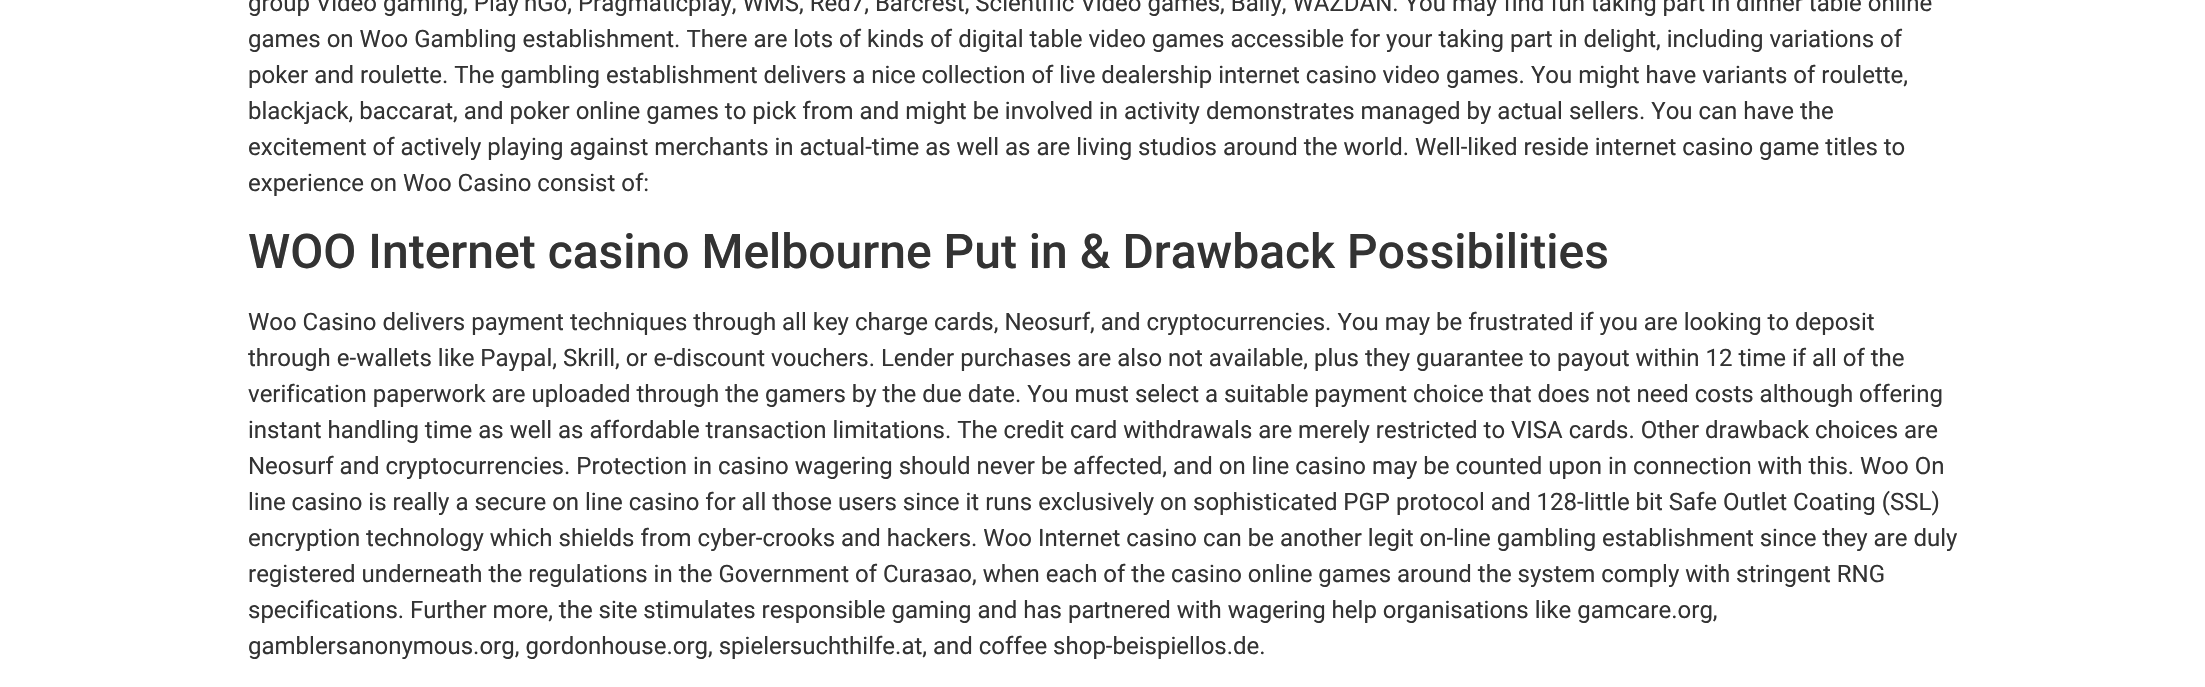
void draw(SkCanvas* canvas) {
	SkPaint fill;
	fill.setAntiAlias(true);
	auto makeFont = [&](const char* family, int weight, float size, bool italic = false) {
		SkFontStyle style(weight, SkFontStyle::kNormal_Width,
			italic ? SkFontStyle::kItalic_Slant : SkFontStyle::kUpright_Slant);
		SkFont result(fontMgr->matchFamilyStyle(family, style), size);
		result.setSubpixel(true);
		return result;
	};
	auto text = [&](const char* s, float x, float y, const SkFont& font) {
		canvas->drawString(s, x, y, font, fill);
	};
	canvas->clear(0xFFFFFFFF);
	auto font1 = makeFont("Roboto", 400, 24);
	fill.setColor(0xFF333333);
	text("group Video gaming, Play’nGo, Pragmaticplay, WMS, Red7, Barcrest, Scientific Video games, Bally, WAZDAN. You may find fun taking part in dinner table online", 248, 11, font1);
	text("games on Woo Gambling establishment. There are lots of kinds of digital table video games accessible for your taking part in delight, including variations of", 248, 47, font1);
	text("poker and roulette. The gambling establishment delivers a nice collection of live dealership internet casino video games. You might have variants of roulette,", 248, 83, font1);
	text("blackjack, baccarat, and poker online games to pick from and might be involved in activity demonstrates managed by actual sellers. You can have the", 248, 119, font1);
	text("excitement of actively playing against merchants in actual-time as well as are living studios around the world. Well-liked reside internet casino game titles to", 248, 155, font1);
	text("experience on Woo Casino consist of:", 248, 191, font1);
	auto font2 = makeFont("Roboto", 500, 48);
	text("WOO Internet casino Melbourne Put in & Drawback Possibilities", 248, 268, font2);
	text("Woo Casino delivers payment techniques through all key charge cards, Neosurf, and cryptocurrencies. You may be frustrated if you are looking to deposit", 248, 330, font1);
	text("through e-wallets like Paypal, Skrill, or e-discount vouchers. Lender purchases are also not available, plus they guarantee to payout within 12 time if all of the", 248, 366, font1);
	text("verification paperwork are uploaded through the gamers by the due date. You must select a suitable payment choice that does not need costs although offering", 248, 402, font1);
	text("instant handling time as well as affordable transaction limitations. The credit card withdrawals are merely restricted to VISA cards. Other drawback choices are", 248, 438, font1);
	text("Neosurf and cryptocurrencies. Protection in casino wagering should never be affected, and on line casino may be counted upon in connection with this. Woo On", 248, 474, font1);
	text("line casino is really a secure on line casino for all those users since it runs exclusively on sophisticated PGP protocol and 128-little bit Safe Outlet Coating (SSL)", 248, 510, font1);
	text("encryption technology which shields from cyber-crooks and hackers. Woo Internet casino can be another legit on-line gambling establishment since they are duly", 248, 546, font1);
	text("registered underneath the regulations in the Government of Curaзao, when each of the casino online games around the system comply with stringent RNG", 248, 582, font1);
	text("specifications. Further more, the site stimulates responsible gaming and has partnered with wagering help organisations like gamcare.org,", 248, 618, font1);
	text("gamblersanonymous.org, gordonhouse.org, spielersuchthilfe.at, and coffee shop-beispiellos.de.", 248, 654, font1);
}
